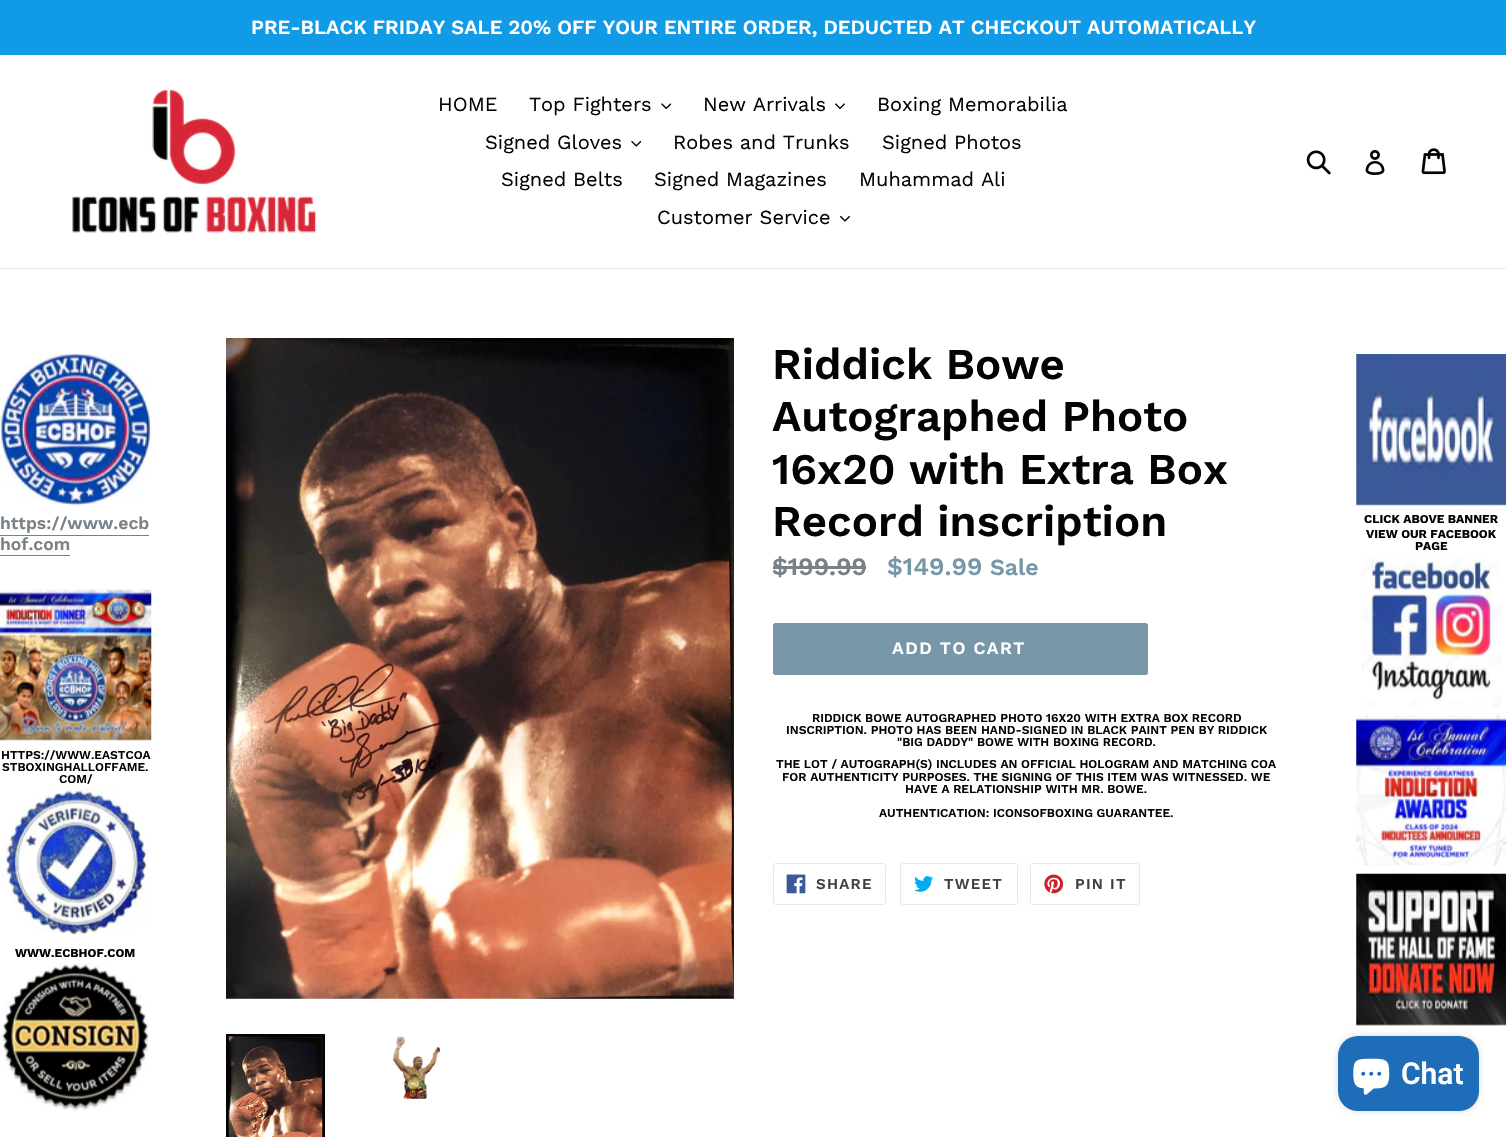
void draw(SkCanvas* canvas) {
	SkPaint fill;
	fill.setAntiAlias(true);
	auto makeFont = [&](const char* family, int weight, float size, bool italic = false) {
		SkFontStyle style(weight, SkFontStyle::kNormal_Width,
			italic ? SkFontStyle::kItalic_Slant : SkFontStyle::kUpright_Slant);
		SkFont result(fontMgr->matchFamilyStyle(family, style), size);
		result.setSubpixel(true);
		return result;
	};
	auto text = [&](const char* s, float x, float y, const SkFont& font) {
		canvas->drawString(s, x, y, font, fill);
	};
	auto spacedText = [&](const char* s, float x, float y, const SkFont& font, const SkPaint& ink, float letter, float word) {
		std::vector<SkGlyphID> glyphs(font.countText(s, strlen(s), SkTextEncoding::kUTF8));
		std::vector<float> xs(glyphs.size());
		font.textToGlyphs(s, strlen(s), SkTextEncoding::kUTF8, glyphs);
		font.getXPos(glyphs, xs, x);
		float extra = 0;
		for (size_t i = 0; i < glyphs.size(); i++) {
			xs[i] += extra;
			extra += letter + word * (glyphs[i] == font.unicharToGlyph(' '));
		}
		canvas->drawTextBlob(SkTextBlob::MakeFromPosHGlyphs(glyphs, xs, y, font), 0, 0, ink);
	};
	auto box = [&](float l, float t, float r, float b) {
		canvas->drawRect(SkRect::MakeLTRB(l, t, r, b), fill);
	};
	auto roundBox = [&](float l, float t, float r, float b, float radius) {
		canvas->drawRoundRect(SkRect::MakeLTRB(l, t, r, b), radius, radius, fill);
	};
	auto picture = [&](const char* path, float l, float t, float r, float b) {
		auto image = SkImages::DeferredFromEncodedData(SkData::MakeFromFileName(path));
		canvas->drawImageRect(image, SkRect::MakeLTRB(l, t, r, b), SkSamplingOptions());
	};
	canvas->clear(0xFFFFFFFF);
	fill.setColor(0xFF119AE6);
	box(0, 0, 1506, 55);
	fill.setColor(0xFFE8E9EB);
	box(0, 268, 1506, 269);
	picture("image0.png", 72, 89, 317, 233);
	picture("image1.png", 661, 103, 671, 110);
	picture("image2.png", 835, 103, 845, 109);
	picture("image3.png", 631, 140, 641, 147);
	picture("image4.png", 840, 215, 850, 222);
	picture("image5.png", 1306, 150, 1331, 175);
	picture("image6.png", 1365, 150, 1385, 175);
	picture("image7.png", 1421, 148, 1446, 175);
	picture("image8.png", 0, 354, 152, 506);
	fill.setColor(0xFF788188);
	box(0, 535, 149, 536);
	box(0, 555, 70, 556);
	picture("image9.png", 0, 589, 152, 741);
	picture("image10.png", 0, 788, 151, 935);
	picture("image11.png", 0, 963, 150, 1111);
	picture("image12.png", 226, 338, 734, 999);
	fill.setStyle(SkPaint::kStroke_Style);
	fill.setStrokeWidth(3);
	fill.setColor(0xFF030303);
	canvas->drawRect(SkRect::MakeLTRB(227.5f, 1035.5f, 323.5f, 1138.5f), fill);
	picture("image13.png", 228, 1036, 323, 1137);
	picture("image14.png", 392, 1036, 441, 1099);
	fill.setStyle(SkPaint::kFill_Style);
	fill.setColor(0xFF788188);
	box(773, 566, 866, 569);
	fill.setColor(0xFF7796A8);
	roundBox(773, 623, 1148, 675, 2.5f);
	fill.setStyle(SkPaint::kStroke_Style);
	fill.setStrokeWidth(1);
	fill.setColor(0xFFE8E9EB);
	canvas->drawRoundRect(SkRect::MakeLTRB(773.5f, 863.5f, 885.5f, 904.5f), 2, 2, fill);
	picture("image15.png", 786, 874, 806, 894);
	canvas->drawRoundRect(SkRect::MakeLTRB(900.5f, 863.5f, 1017.5f, 904.5f), 2, 2, fill);
	picture("image16.png", 914, 876, 934, 892);
	canvas->drawRoundRect(SkRect::MakeLTRB(1030.5f, 863.5f, 1139.5f, 904.5f), 2, 2, fill);
	picture("image17.png", 1044, 874, 1064, 894);
	picture("image18.png", 1356, 354, 1506, 506);
	picture("image19.png", 1361, 555, 1502, 707);
	picture("image20.png", 1356, 714, 1506, 866);
	picture("image21.png", 1356, 873, 1506, 1026);
	fill.setStyle(SkPaint::kFill_Style);
	fill.setColor(0x26000000);
	fill.setMaskFilter(SkMaskFilter::MakeBlur(kNormal_SkBlurStyle, 3));
	canvas->drawRoundRect(SkRect::MakeLTRB(1338, 1036, 1479, 1111), 20, 20, fill);
	fill.setMaskFilter(nullptr);
	fill.setColor(0xFF1E6DB9);
	roundBox(1338, 1036, 1479, 1111, 20);
	picture("image22.png", 1353, 1058, 1390, 1095);
	auto font1 = makeFont("Work Sans", 600, 20);
	fill.setColor(0xFFFFFFFF);
	text("PRE-BLACK FRIDAY SALE 20% OFF YOUR ENTIRE ORDER, DEDUCTED AT CHECKOUT AUTOMATICALLY", 251, 34, font1);
	auto font2 = makeFont("Work Sans", 400, 20);
	fill.setColor(0xFF030303);
	text("HOME", 438, 111, font2);
	text("Top Fighters", 529, 111, font2);
	text("New Arrivals", 703, 111, font2);
	text("Boxing Memorabilia", 877, 111, font2);
	text("Signed Gloves", 485, 149, font2);
	text("Robes and Trunks", 673, 149, font2);
	text("Signed Photos", 882, 149, font2);
	text("Signed Belts", 501, 186, font2);
	text("Signed Magazines", 654, 186, font2);
	text("Muhammad Ali", 859, 186, font2);
	text("Customer Service", 657, 224, font2);
	auto font3 = makeFont("Work Sans", 600, 17.5f);
	fill.setColor(0xFF788188);
	text("https://www.ecb", 0, 529, font3);
	text("hof.com", 0, 550, font3);
	auto font4 = makeFont("Work Sans", 600, 12.05f);
	fill.setColor(0xFF030303);
	text("HTTPS://WWW.EASTCOA", 1, 759, font4);
	text("STBOXINGHALLOFFAME.", 2, 771, font4);
	text("COM/", 59, 783, font4);
	auto font5 = makeFont("Work Sans", 700, 12.05f);
	text("WWW.ECBHOF.COM", 15, 957, font5);
	auto font6 = makeFont("Work Sans", 600, 43.75f);
	text("Riddick Bowe", 772, 379, font6);
	text("Autographed Photo", 772, 431, font6);
	text("16x20 with Extra Box", 772, 484, font6);
	text("Record inscription", 772, 536, font6);
	auto font7 = makeFont("Work Sans", 600, 25);
	fill.setColor(0xFF788188);
	text("$199.99", 772, 575, font7);
	fill.setColor(0xFF7796A8);
	text("$149.99", 887, 575, font7);
	auto font8 = makeFont("Work Sans", 600, 23);
	text("Sale", 990, 575, font8);
	fill.setColor(0xFFFFFFFF);
	spacedText("ADD TO CART", 892, 654, font3, fill, 1.4f, 0);
	fill.setColor(0xFF030303);
	text("RIDDICK BOWE AUTOGRAPHED PHOTO 16X20 WITH EXTRA BOX RECORD", 812, 722, font4);
	text("INSCRIPTION. PHOTO HAS BEEN HAND-SIGNED IN BLACK PAINT PEN BY RIDDICK", 786, 734, font4);
	text("\"BIG DADDY\" BOWE WITH BOXING RECORD.", 897, 746, font4);
	text("THE LOT / AUTOGRAPH(S) INCLUDES AN OFFICIAL HOLOGRAM AND MATCHING COA", 776, 768, font4);
	text("FOR AUTHENTICITY PURPOSES. THE SIGNING OF THIS ITEM WAS WITNESSED. WE", 782, 781, font4);
	text("HAVE A RELATIONSHIP WITH MR. BOWE.", 905, 793, font4);
	text("AUTHENTICATION: ICONSOFBOXING GUARANTEE.", 879, 817, font4);
	auto font9 = makeFont("Work Sans", 600, 15);
	fill.setColor(0xFF3D4246);
	spacedText("SHARE", 816, 889, font9, fill, 1.25f, 0);
	spacedText("TWEET", 944, 889, font9, fill, 1.25f, 0);
	spacedText("PIN IT", 1075, 889, font9, fill, 1.25f, 0);
	fill.setColor(0xFF030303);
	text("CLICK ABOVE BANNER", 1364, 523, font5);
	text("VIEW OUR FACEBOOK", 1366, 538, font5);
	text("PAGE", 1415, 550, font5);
	auto font10 = makeFont("Roboto", 600, 30);
	fill.setColor(0xFFFFFFFF);
	text("Chat", 1401, 1084, font10);
}
